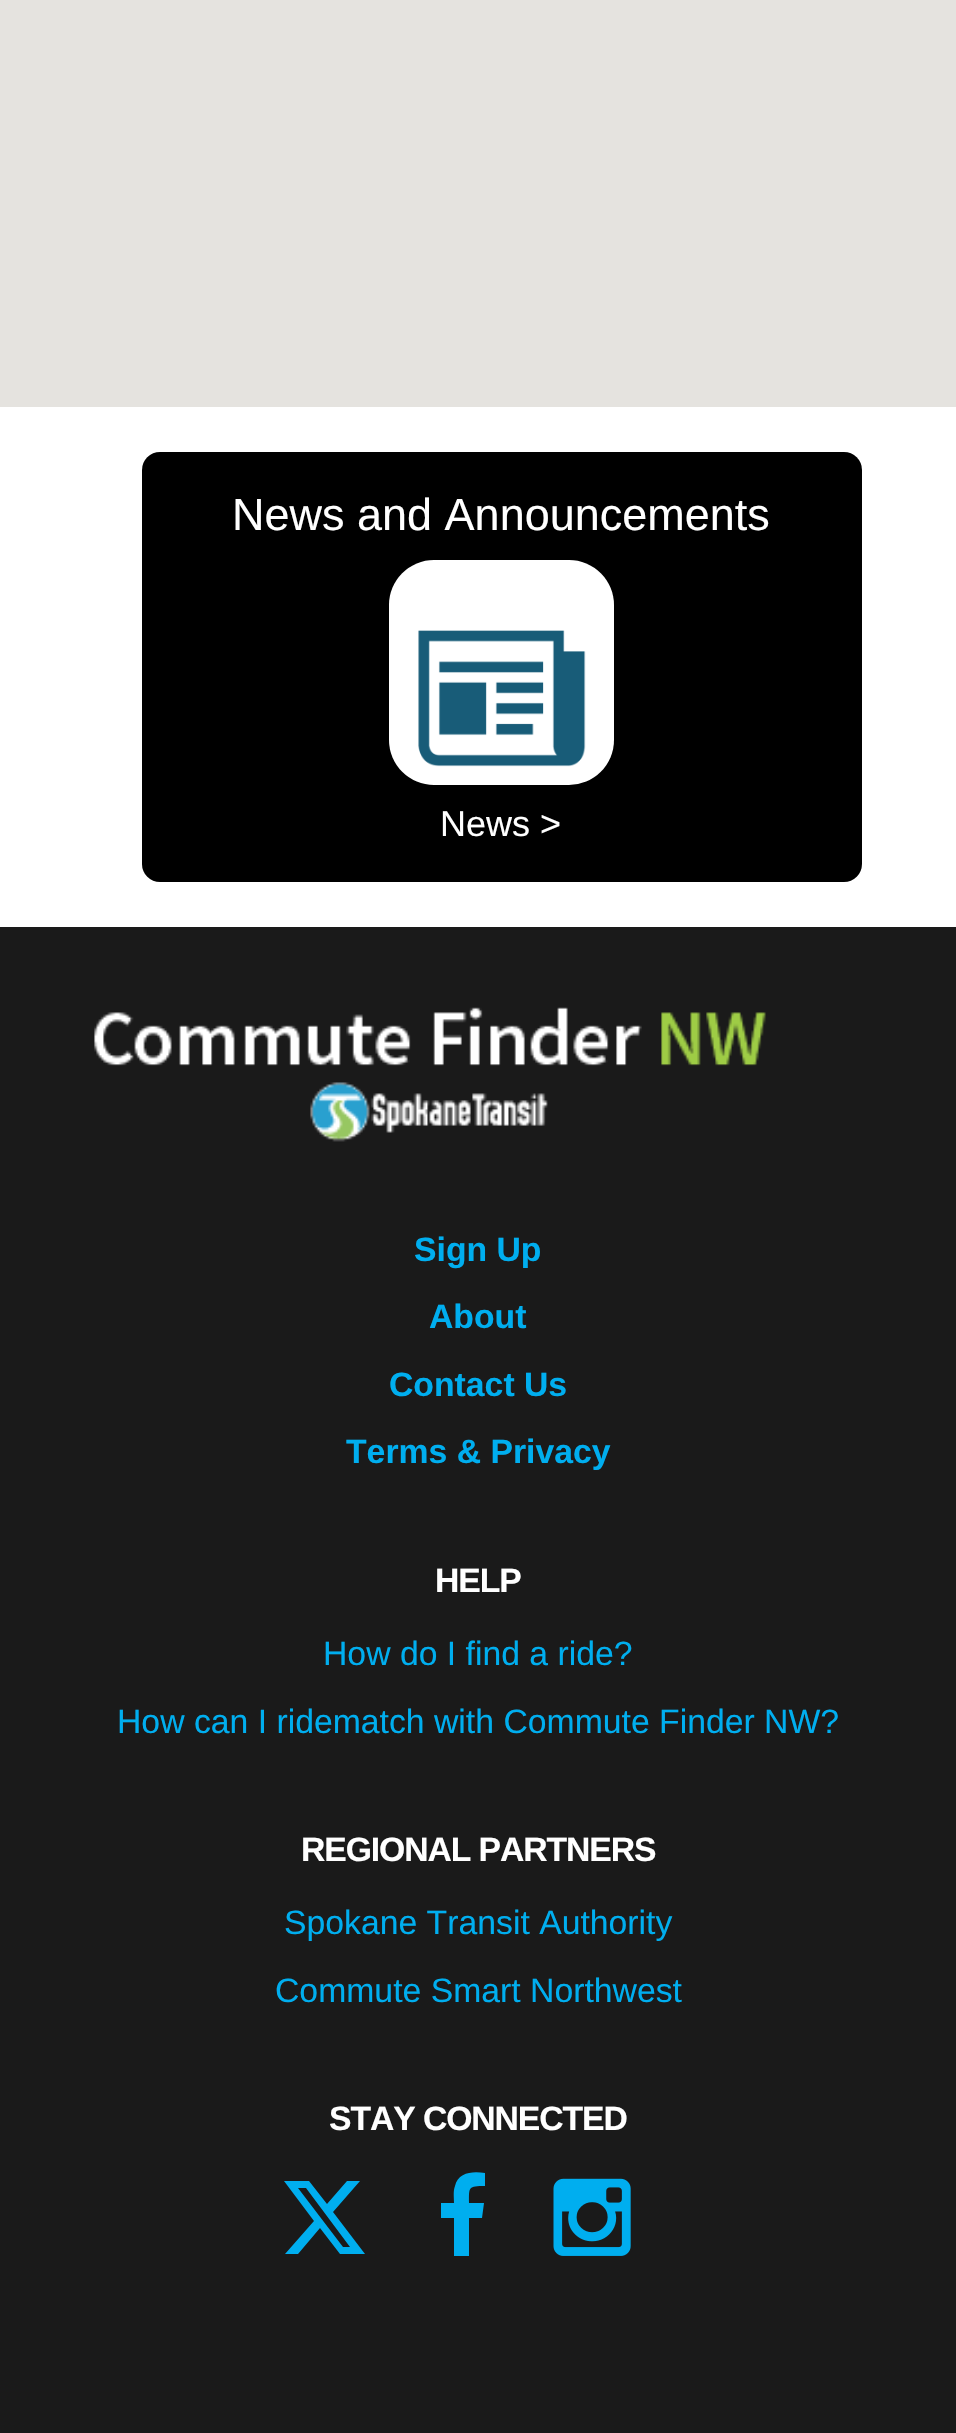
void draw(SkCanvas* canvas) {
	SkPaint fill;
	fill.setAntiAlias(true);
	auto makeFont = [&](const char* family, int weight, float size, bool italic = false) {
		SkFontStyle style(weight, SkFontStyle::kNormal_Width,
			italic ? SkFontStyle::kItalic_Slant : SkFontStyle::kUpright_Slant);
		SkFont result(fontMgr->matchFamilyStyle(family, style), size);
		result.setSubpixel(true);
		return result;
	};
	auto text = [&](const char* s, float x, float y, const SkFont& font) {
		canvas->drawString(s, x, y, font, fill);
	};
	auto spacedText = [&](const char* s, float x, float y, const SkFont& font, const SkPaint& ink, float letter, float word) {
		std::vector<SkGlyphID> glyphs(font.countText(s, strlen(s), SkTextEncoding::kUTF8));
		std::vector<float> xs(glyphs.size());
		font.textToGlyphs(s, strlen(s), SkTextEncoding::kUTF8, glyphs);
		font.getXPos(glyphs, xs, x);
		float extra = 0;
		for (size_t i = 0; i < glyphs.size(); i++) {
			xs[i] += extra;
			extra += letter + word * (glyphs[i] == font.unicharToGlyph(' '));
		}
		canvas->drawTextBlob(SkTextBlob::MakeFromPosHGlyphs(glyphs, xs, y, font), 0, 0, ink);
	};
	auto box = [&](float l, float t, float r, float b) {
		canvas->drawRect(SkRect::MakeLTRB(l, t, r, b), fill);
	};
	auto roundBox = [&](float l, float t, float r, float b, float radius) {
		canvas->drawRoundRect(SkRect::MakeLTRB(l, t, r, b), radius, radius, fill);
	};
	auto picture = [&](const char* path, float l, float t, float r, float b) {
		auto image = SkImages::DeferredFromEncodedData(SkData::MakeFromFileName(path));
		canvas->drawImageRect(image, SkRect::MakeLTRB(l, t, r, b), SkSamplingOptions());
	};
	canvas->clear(0xFFFFFFFF);
	fill.setColor(0xFFE5E3DF);
	box(0, 0, 956, 407);
	fill.setColor(0xFF000000);
	roundBox(142, 452, 862, 882, 18);
	fill.setColor(0xFFFFFFFF);
	roundBox(389, 560, 614, 785, 45);
	picture("image0.png", 418, 630, 586, 767);
	fill.setColor(0xFF1A1A1A);
	box(0, 927, 956, 2433);
	picture("image1.png", 94, 1007, 766, 1142);
	fill.setColor(0xFF00AEEF);
	canvas->drawPath(SkPathBuilder().moveTo(347, 2181).lineTo(360, 2181).lineTo(333, 2212).lineTo(365, 2254).lineTo(340, 2254).lineTo(320, 2228).lineTo(298, 2254).lineTo(285, 2254).lineTo(314, 2221).lineTo(284, 2181).lineTo(309, 2181).lineTo(327, 2204).close().moveTo(343, 2247).lineTo(350, 2247).lineTo(306, 2188).lineTo(298, 2188).close().detach(), fill);
	canvas->drawPath(SkPathBuilder().moveTo(485, 2173).lineTo(485, 2186).cubicTo(468, 2186, 469, 2187, 469, 2203).lineTo(484, 2203).lineTo(482, 2218).lineTo(469, 2218).lineTo(469, 2256).lineTo(454, 2256).lineTo(454, 2218).lineTo(441, 2218).lineTo(441, 2203).lineTo(454, 2203).cubicTo(454, 2197, 453, 2191, 455, 2186).cubicTo(458, 2172, 473, 2171, 485, 2173).close().detach(), fill);
	picture("image2.png", 553, 2178, 631, 2256);
	auto font1 = makeFont("Liberation Sans", 400, 45);
	fill.setColor(0xFFFFFFFF);
	text("News and Announcements", 232, 530, font1);
	auto font2 = makeFont("Liberation Sans", 400, 36);
	text("News >", 440, 836, font2);
	auto font3 = makeFont("Liberation Sans", 700, 33.75f);
	fill.setColor(0xFF00AEEF);
	text("Sign Up", 414, 1261, font3);
	text("About", 429, 1328, font3);
	text("Contact Us", 389, 1396, font3);
	text("Terms & Privacy", 346, 1463, font3);
	fill.setColor(0xFFFFFFFF);
	spacedText("HELP", 435, 1592, font3, fill, -1.1f, 0);
	auto font4 = makeFont("Liberation Sans", 400, 33.75f);
	fill.setColor(0xFF00AEEF);
	text("How do I find a ride?", 323, 1665, font4);
	text("How can I ridematch with Commute Finder NW?", 117, 1733, font4);
	fill.setColor(0xFFFFFFFF);
	spacedText("REGIONAL PARTNERS", 301, 1861, font3, fill, -1.1f, 0);
	fill.setColor(0xFF00AEEF);
	text("Spokane Transit Authority", 284, 1934, font4);
	text("Commute Smart Northwest", 275, 2002, font4);
	fill.setColor(0xFFFFFFFF);
	spacedText("STAY CONNECTED", 329, 2130, font3, fill, -1.1f, 0);
}
